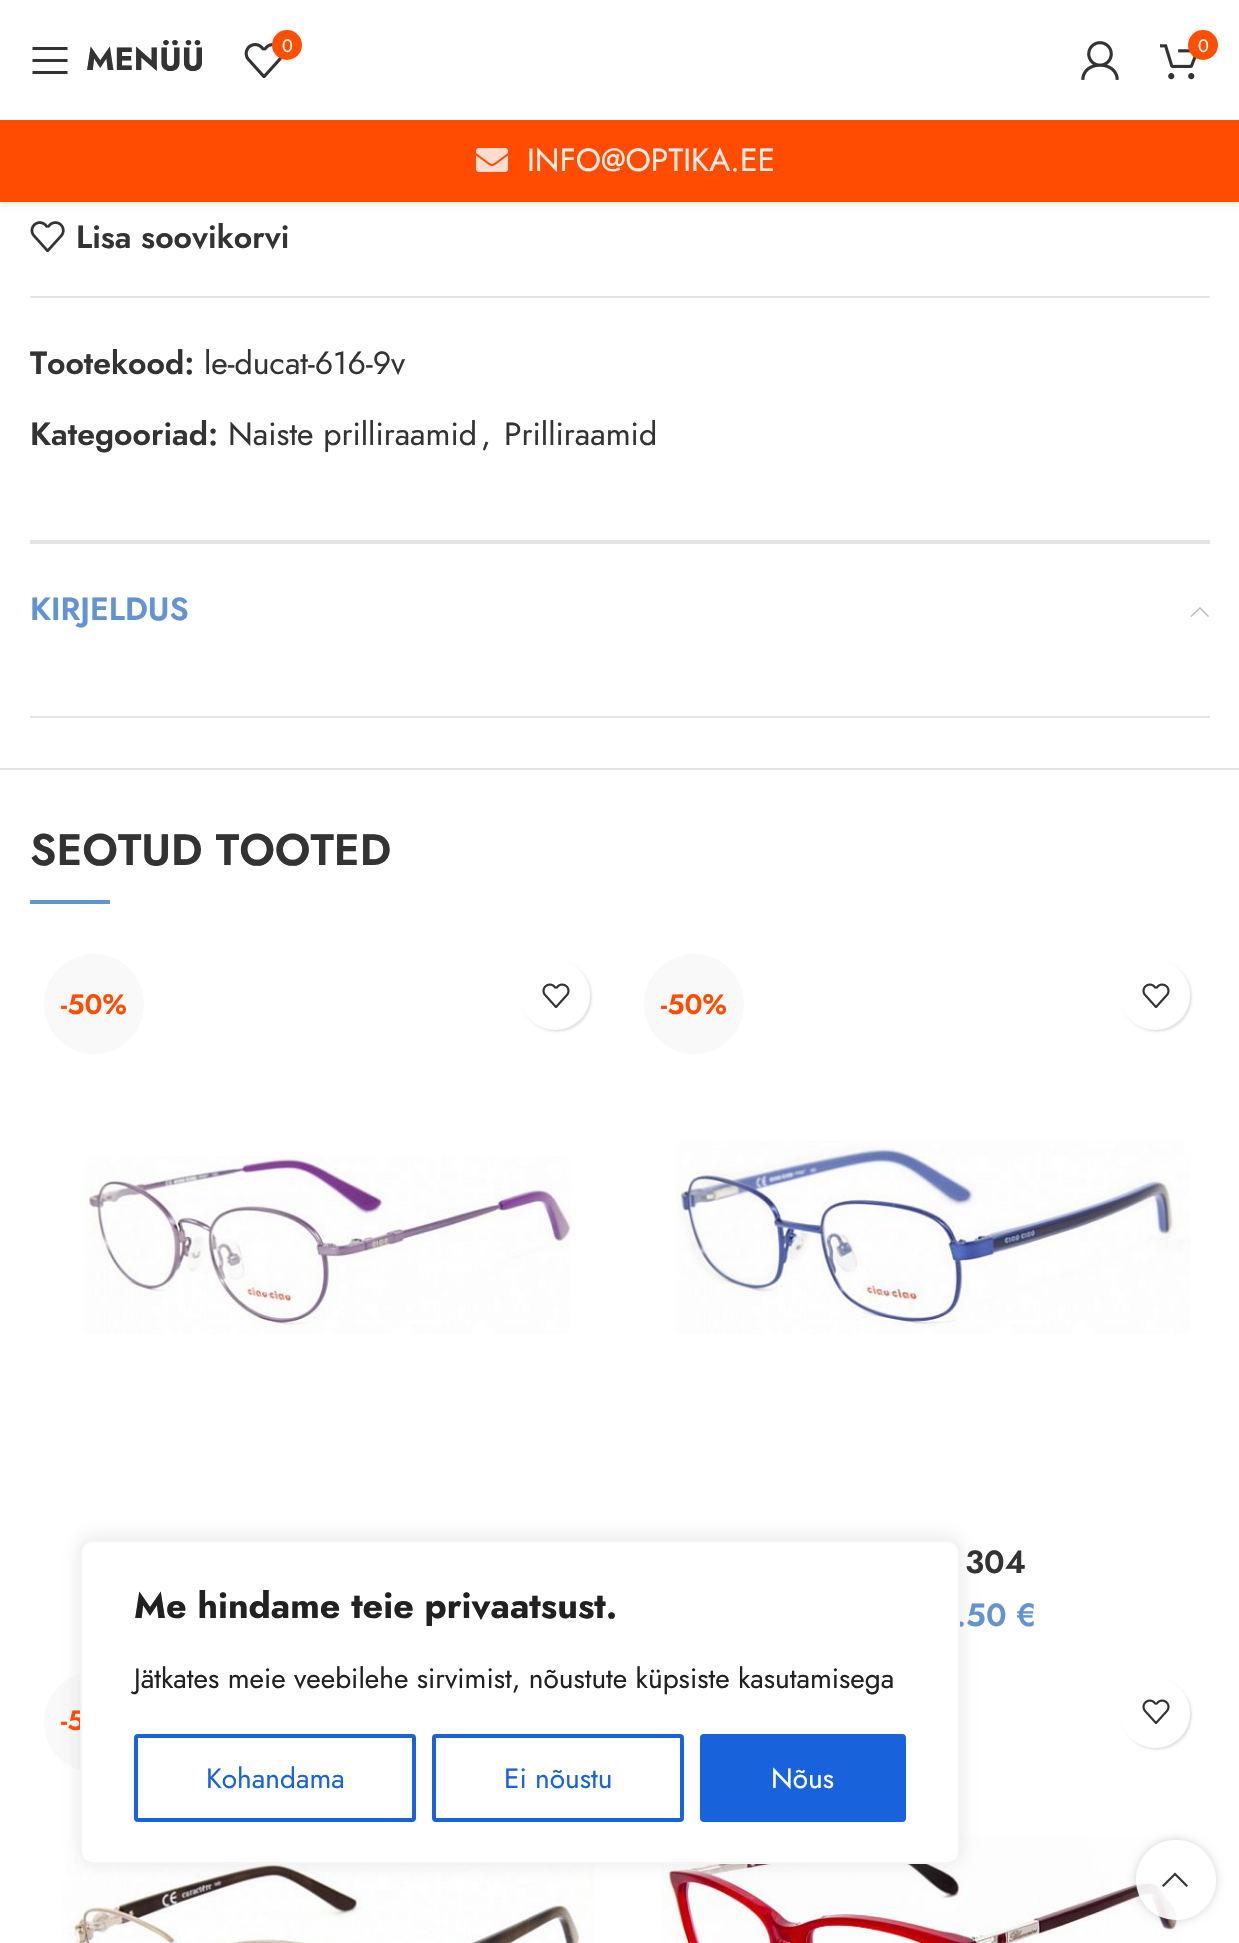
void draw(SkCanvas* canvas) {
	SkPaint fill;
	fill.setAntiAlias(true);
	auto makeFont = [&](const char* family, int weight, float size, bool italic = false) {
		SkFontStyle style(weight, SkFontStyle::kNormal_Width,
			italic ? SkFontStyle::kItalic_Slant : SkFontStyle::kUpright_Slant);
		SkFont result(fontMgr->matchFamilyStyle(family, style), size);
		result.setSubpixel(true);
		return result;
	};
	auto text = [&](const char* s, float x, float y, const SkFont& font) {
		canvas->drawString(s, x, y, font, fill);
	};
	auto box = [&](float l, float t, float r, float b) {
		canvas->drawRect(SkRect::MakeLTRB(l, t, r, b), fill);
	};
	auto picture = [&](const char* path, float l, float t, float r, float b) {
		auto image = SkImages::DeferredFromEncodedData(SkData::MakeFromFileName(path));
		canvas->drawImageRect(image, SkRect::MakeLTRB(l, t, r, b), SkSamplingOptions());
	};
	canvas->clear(0xFFFFFFFF);
	fill.setColor(0x1A000000);
	fill.setMaskFilter(SkMaskFilter::MakeBlur(kNormal_SkBlurStyle, 3));
	canvas->drawRect(SkRect::MakeLTRB(0, 2, 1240, 204), fill);
	fill.setMaskFilter(nullptr);
	fill.setColor(0xFFFFFFFF);
	box(0, 0, 1239, 120);
	fill.setColor(0xFF333333);
	canvas->drawPath(SkPathBuilder().moveTo(32.5f, 50).lineTo(67.5f, 50).lineTo(67.5f, 47).lineTo(32.5f, 47).close().moveTo(32.5f, 62).lineTo(67.5f, 62).lineTo(67.5f, 59).lineTo(32.5f, 59).close().moveTo(32.5f, 74).lineTo(67.5f, 74).lineTo(67.5f, 71).lineTo(32.5f, 71).close().detach(), fill);
	picture("image0.png", 244, 43, 282, 78);
	fill.setColor(0xFFFD4F01);
	canvas->drawCircle(287, 45, 15, fill);
	picture("image1.png", 1081, 41, 1119, 80);
	picture("image2.png", 1160, 44, 1197, 80);
	canvas->drawCircle(1203, 45, 15, fill);
	fill.setColor(0xFFFF4C01);
	box(0, 120, 1239, 202);
	picture("image3.png", 476, 148, 508, 172);
	picture("image4.png", 30, 221, 65, 252);
	fill.setColor(0xFFE4E4E4);
	box(30, 296, 1210, 298);
	box(0, 768, 1239, 770);
	box(30, 540, 1210, 544);
	box(30, 716, 1210, 718);
	fill.setColor(0xFFBBBBBB);
	canvas->drawPath(SkPathBuilder().moveTo(1191.5f, 617).lineTo(1200, 609).lineTo(1208, 617).lineTo(1209, 616).lineTo(1200, 607).lineTo(1190.5f, 616).close().detach(), fill);
	fill.setColor(0xFF6494D0);
	box(30, 900, 110, 904);
	fill.setColor(0xFFF9F9F9);
	canvas->drawCircle(94, 1004, 50, fill);
	picture("image5.png", 84, 1156, 571, 1334);
	fill.setColor(0x1A000000);
	fill.setMaskFilter(SkMaskFilter::MakeBlur(kNormal_SkBlurStyle, 1));
	canvas->drawRoundRect(SkRect::MakeLTRB(522, 962, 592, 1032), 35, 35, fill);
	fill.setMaskFilter(nullptr);
	fill.setColor(0xFFFFFFFF);
	canvas->drawCircle(555, 995, 35, fill);
	picture("image6.png", 542, 983, 570, 1008);
	fill.setColor(0xFFF9F9F9);
	canvas->drawCircle(694, 1004, 50, fill);
	picture("image7.png", 676, 1141, 1190, 1334);
	fill.setColor(0x1A000000);
	fill.setMaskFilter(SkMaskFilter::MakeBlur(kNormal_SkBlurStyle, 1));
	canvas->drawRoundRect(SkRect::MakeLTRB(1122, 962, 1192, 1032), 35, 35, fill);
	fill.setMaskFilter(nullptr);
	fill.setColor(0xFFFFFFFF);
	canvas->drawCircle(1155, 995, 35, fill);
	picture("image6.png", 1142, 983, 1170, 1008);
	fill.setColor(0xFFF9F9F9);
	canvas->drawCircle(94, 1722, 50, fill);
	picture("image8.png", 61, 1859, 595, 1943);
	fill.setColor(0x1A000000);
	fill.setMaskFilter(SkMaskFilter::MakeBlur(kNormal_SkBlurStyle, 1));
	canvas->drawRoundRect(SkRect::MakeLTRB(1122, 1680, 1192, 1750), 35, 35, fill);
	fill.setMaskFilter(nullptr);
	fill.setColor(0xFFFFFFFF);
	canvas->drawCircle(1155, 1713, 35, fill);
	picture("image6.png", 1142, 1699, 1170, 1724);
	picture("image9.png", 661, 1837, 1181, 1943);
	fill.setColor(0x4DACABAB);
	fill.setMaskFilter(SkMaskFilter::MakeBlur(kNormal_SkBlurStyle, 10));
	canvas->drawRoundRect(SkRect::MakeLTRB(80, 1538, 960, 1862), 12, 12, fill);
	fill.setMaskFilter(nullptr);
	canvas->save();
	canvas->clipPath(SkPathBuilder(SkPathFillType::kEvenOdd).moveTo(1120, 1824).lineTo(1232, 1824).lineTo(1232, 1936).lineTo(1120, 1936).close().moveTo(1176, 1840).cubicTo(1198, 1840, 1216, 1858, 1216, 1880).cubicTo(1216, 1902, 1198, 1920, 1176, 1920).cubicTo(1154, 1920, 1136, 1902, 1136, 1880).cubicTo(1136, 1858, 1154, 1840, 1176, 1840).close().detach(), true);
	fill.setColor(0x2B000000);
	fill.setMaskFilter(SkMaskFilter::MakeBlur(kNormal_SkBlurStyle, 5));
	canvas->drawRoundRect(SkRect::MakeLTRB(1136, 1840, 1216, 1920), 40, 40, fill);
	fill.setMaskFilter(nullptr);
	canvas->restore();
	fill.setColor(0xE6FFFFFF);
	canvas->drawCircle(1176, 1880, 40, fill);
	fill.setColor(0xFF333333);
	canvas->drawPath(SkPathBuilder().moveTo(1186.5f, 1887).lineTo(1188, 1885.5f).lineTo(1175, 1872.5f).lineTo(1162, 1885.5f).lineTo(1163.5f, 1887).lineTo(1175, 1875.5f).close().detach(), fill);
	auto font1 = makeFont("Jost", 700, 32);
	text("MENÜÜ", 86, 70, font1);
	auto font2 = makeFont("Jost", 400, 18);
	fill.setColor(0xFFFFFFFF);
	text("0", 282, 52, font2);
	text("0", 1198, 52, font2);
	auto font3 = makeFont("Jost", 400, 32);
	fill.setColor(0xFFFFEDE6);
	text("INFO@OPTIKA.EE", 527, 171, font3);
	auto font4 = makeFont("Jost", 600, 32);
	fill.setColor(0xFF333333);
	text("Lisa soovikorvi", 76, 248, font4);
	text("Tootekood:", 30, 374, font4);
	text("le-ducat-616-9v", 204, 374, font3);
	text("Kategooriad:", 30, 445, font4);
	text("Naiste prilliraamid", 228, 445, font3);
	text(",", 481, 445, font3);
	text("Prilliraamid", 504, 445, font3);
	fill.setColor(0xFF6494D0);
	text("KIRJELDUS", 30, 620, font4);
	auto font5 = makeFont("Jost", 600, 44);
	fill.setColor(0xFF333333);
	text("SEOTUD TOOTED", 30, 865, font5);
	auto font6 = makeFont("Jost", 600, 28);
	fill.setColor(0xFFFF4C01);
	text("-50%", 61, 1014, font6);
	text("-50%", 661, 1014, font6);
	fill.setColor(0xFF333333);
	text("304", 965, 1573, font4);
	fill.setColor(0xFF6494D0);
	text(".50 €", 956, 1626, font4);
	fill.setColor(0xFFFF4C01);
	text("-5", 61, 1730, font6);
	fill.setColor(0xFFFFFFFF);
	canvas->drawRoundRect(SkRect::MakeLTRB(81, 1541, 959, 1863), 11, 11, fill);
	fill.setStyle(SkPaint::kStroke_Style);
	fill.setStrokeWidth(2);
	fill.setColor(0xFFF4F4F4);
	canvas->drawRoundRect(SkRect::MakeLTRB(81, 1541, 959, 1863), 11, 11, fill);
	auto font7 = makeFont("Jost", 700, 36);
	fill.setStyle(SkPaint::kFill_Style);
	fill.setColor(0xFF212121);
	text("Me hindame teie privaatsust.", 134, 1618, font7);
	auto font8 = makeFont("Jost", 400, 28);
	text("Jätkates meie veebilehe sirvimist, nõustute küpsiste kasutamisega", 134, 1688, font8);
	fill.setStyle(SkPaint::kStroke_Style);
	fill.setStrokeWidth(4);
	fill.setColor(0xFF1863DC);
	canvas->drawRoundRect(SkRect::MakeLTRB(136, 1736, 414, 1820), 2, 2, fill);
	fill.setStyle(SkPaint::kFill_Style);
	text("Kohandama", 206, 1788, font8);
	fill.setStyle(SkPaint::kStroke_Style);
	canvas->drawRoundRect(SkRect::MakeLTRB(434, 1736, 682, 1820), 2, 2, fill);
	fill.setStyle(SkPaint::kFill_Style);
	text("Ei nõustu", 504, 1788, font8);
	canvas->drawRoundRect(SkRect::MakeLTRB(702, 1736, 904, 1820), 2, 2, fill);
	fill.setStyle(SkPaint::kStroke_Style);
	canvas->drawRoundRect(SkRect::MakeLTRB(702, 1736, 904, 1820), 2, 2, fill);
	fill.setStyle(SkPaint::kFill_Style);
	fill.setColor(0xFFFFFFFF);
	text("Nõus", 771, 1788, font8);
}
